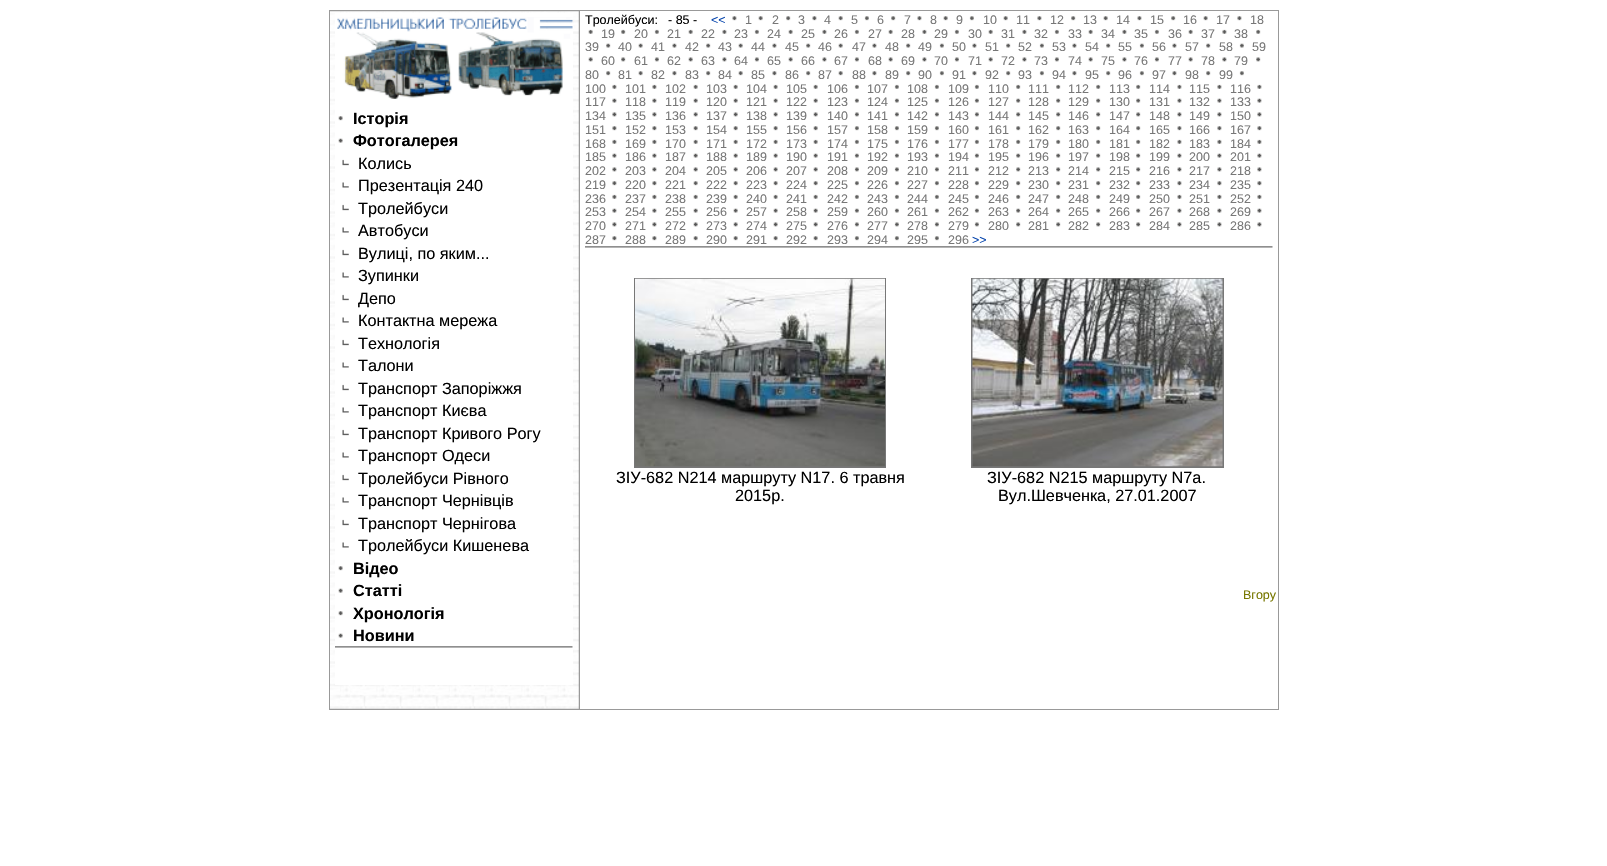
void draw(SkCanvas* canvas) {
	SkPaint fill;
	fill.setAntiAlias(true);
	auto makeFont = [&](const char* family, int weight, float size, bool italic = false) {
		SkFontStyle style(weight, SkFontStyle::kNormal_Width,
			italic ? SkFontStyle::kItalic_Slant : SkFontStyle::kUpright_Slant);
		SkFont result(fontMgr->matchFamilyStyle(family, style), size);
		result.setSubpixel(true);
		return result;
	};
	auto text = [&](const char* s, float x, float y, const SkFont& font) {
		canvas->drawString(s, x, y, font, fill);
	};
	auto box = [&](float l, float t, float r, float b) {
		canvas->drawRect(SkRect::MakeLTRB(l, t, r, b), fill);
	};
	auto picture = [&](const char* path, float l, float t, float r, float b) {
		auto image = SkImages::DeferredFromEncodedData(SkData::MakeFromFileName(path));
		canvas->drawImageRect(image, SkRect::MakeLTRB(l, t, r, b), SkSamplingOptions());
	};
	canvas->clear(0xFFFFFFFF);
	fill.setColor(0xFF999999);
	box(329, 10, 1279, 710);
	picture("image0.png", 330, 11, 579, 709);
	fill.setColor(0xFFFFFFFF);
	box(335, 13, 573, 685);
	picture("image1.png", 337, 17, 573, 99);
	picture("image2.png", 338, 116, 343, 121);
	picture("image3.png", 338, 138, 343, 143);
	picture("image4.png", 342, 159, 349, 166);
	picture("image5.png", 342, 182, 349, 188);
	picture("image4.png", 342, 204, 349, 211);
	picture("image5.png", 342, 227, 349, 233);
	picture("image4.png", 342, 249, 349, 256);
	picture("image5.png", 342, 272, 349, 278);
	picture("image4.png", 342, 294, 349, 301);
	picture("image5.png", 342, 317, 349, 323);
	picture("image4.png", 342, 339, 349, 346);
	picture("image5.png", 342, 362, 349, 368);
	picture("image4.png", 342, 384, 349, 391);
	picture("image5.png", 342, 407, 349, 413);
	picture("image4.png", 342, 429, 349, 436);
	picture("image5.png", 342, 452, 349, 458);
	picture("image4.png", 342, 474, 349, 481);
	picture("image5.png", 342, 497, 349, 503);
	picture("image4.png", 342, 519, 349, 526);
	picture("image5.png", 342, 542, 349, 548);
	picture("image2.png", 338, 566, 343, 571);
	picture("image6.png", 338, 588, 343, 593);
	picture("image2.png", 338, 611, 343, 616);
	picture("image3.png", 338, 633, 343, 638);
	picture("image7.png", 335, 646, 573, 648);
	box(580, 11, 1278, 709);
	picture("image8.png", 732, 16, 737, 21);
	picture("image9.png", 758, 16, 763, 21);
	picture("image10.png", 786, 16, 791, 21);
	picture("image8.png", 812, 16, 817, 21);
	picture("image9.png", 838, 16, 843, 21);
	picture("image11.png", 864, 16, 869, 21);
	picture("image10.png", 891, 16, 896, 21);
	picture("image8.png", 917, 16, 922, 21);
	picture("image9.png", 943, 16, 948, 21);
	picture("image11.png", 969, 16, 974, 21);
	picture("image9.png", 1003, 16, 1008, 21);
	picture("image12.png", 1037, 16, 1042, 21);
	picture("image13.png", 1071, 16, 1076, 21);
	picture("image9.png", 1103, 16, 1108, 21);
	picture("image8.png", 1137, 16, 1142, 21);
	picture("image13.png", 1171, 16, 1176, 21);
	picture("image2.png", 1203, 16, 1208, 21);
	picture("image12.png", 1237, 16, 1242, 21);
	picture("image14.png", 588, 29, 593, 34);
	picture("image15.png", 621, 29, 626, 34);
	picture("image16.png", 654, 29, 659, 34);
	picture("image14.png", 688, 29, 693, 34);
	picture("image17.png", 722, 29, 727, 34);
	picture("image16.png", 754, 29, 759, 34);
	picture("image18.png", 788, 29, 793, 34);
	picture("image17.png", 822, 29, 827, 34);
	picture("image16.png", 854, 29, 859, 34);
	picture("image18.png", 888, 29, 893, 34);
	picture("image17.png", 922, 29, 927, 34);
	picture("image16.png", 954, 29, 959, 34);
	picture("image14.png", 988, 29, 993, 34);
	picture("image17.png", 1022, 29, 1027, 34);
	picture("image16.png", 1054, 29, 1059, 34);
	picture("image18.png", 1088, 29, 1093, 34);
	picture("image17.png", 1122, 29, 1127, 34);
	picture("image16.png", 1154, 29, 1159, 34);
	picture("image18.png", 1188, 29, 1193, 34);
	picture("image19.png", 1222, 29, 1227, 34);
	picture("image15.png", 1256, 29, 1261, 34);
	picture("image20.png", 606, 43, 611, 48);
	picture("image3.png", 638, 43, 643, 48);
	picture("image21.png", 672, 43, 677, 48);
	picture("image20.png", 706, 43, 711, 48);
	picture("image22.png", 738, 43, 743, 48);
	picture("image21.png", 772, 43, 777, 48);
	picture("image23.png", 806, 43, 811, 48);
	picture("image22.png", 838, 43, 843, 48);
	picture("image21.png", 872, 43, 877, 48);
	picture("image20.png", 906, 43, 911, 48);
	picture("image24.png", 939, 43, 944, 48);
	picture("image21.png", 972, 43, 977, 48);
	picture("image23.png", 1006, 43, 1011, 48);
	picture("image24.png", 1039, 43, 1044, 48);
	picture("image21.png", 1072, 43, 1077, 48);
	picture("image23.png", 1106, 43, 1111, 48);
	picture("image24.png", 1139, 43, 1144, 48);
	picture("image21.png", 1172, 43, 1177, 48);
	picture("image20.png", 1206, 43, 1211, 48);
	picture("image24.png", 1239, 43, 1244, 48);
	picture("image25.png", 588, 57, 593, 62);
	picture("image26.png", 621, 57, 626, 62);
	picture("image27.png", 654, 57, 659, 62);
	picture("image25.png", 688, 57, 693, 62);
	picture("image28.png", 722, 57, 727, 62);
	picture("image27.png", 754, 57, 759, 62);
	picture("image29.png", 788, 57, 793, 62);
	picture("image28.png", 822, 57, 827, 62);
	picture("image27.png", 854, 57, 859, 62);
	picture("image29.png", 888, 57, 893, 62);
	picture("image28.png", 922, 57, 927, 62);
	picture("image27.png", 954, 57, 959, 62);
	picture("image25.png", 988, 57, 993, 62);
	picture("image28.png", 1022, 57, 1027, 62);
	picture("image27.png", 1054, 57, 1059, 62);
	picture("image29.png", 1088, 57, 1093, 62);
	picture("image28.png", 1122, 57, 1127, 62);
	picture("image27.png", 1154, 57, 1159, 62);
	picture("image29.png", 1188, 57, 1193, 62);
	picture("image30.png", 1222, 57, 1227, 62);
	picture("image26.png", 1256, 57, 1261, 62);
	picture("image10.png", 606, 71, 611, 76);
	picture("image2.png", 638, 71, 643, 76);
	picture("image8.png", 672, 71, 677, 76);
	picture("image10.png", 706, 71, 711, 76);
	picture("image9.png", 738, 71, 743, 76);
	picture("image8.png", 772, 71, 777, 76);
	picture("image13.png", 806, 71, 811, 76);
	picture("image9.png", 838, 71, 843, 76);
	picture("image8.png", 872, 71, 877, 76);
	picture("image10.png", 906, 71, 911, 76);
	picture("image11.png", 939, 71, 944, 76);
	picture("image8.png", 972, 71, 977, 76);
	picture("image13.png", 1006, 71, 1011, 76);
	picture("image11.png", 1039, 71, 1044, 76);
	picture("image8.png", 1072, 71, 1077, 76);
	picture("image13.png", 1106, 71, 1111, 76);
	picture("image11.png", 1139, 71, 1144, 76);
	picture("image8.png", 1172, 71, 1177, 76);
	picture("image10.png", 1206, 71, 1211, 76);
	picture("image11.png", 1239, 71, 1244, 76);
	picture("image19.png", 612, 84, 617, 89);
	picture("image19.png", 652, 84, 657, 89);
	picture("image14.png", 693, 84, 698, 89);
	picture("image14.png", 733, 84, 738, 89);
	picture("image18.png", 773, 84, 778, 89);
	picture("image14.png", 813, 84, 818, 89);
	picture("image16.png", 854, 84, 859, 89);
	picture("image16.png", 894, 84, 899, 89);
	picture("image16.png", 934, 84, 939, 89);
	picture("image16.png", 974, 84, 979, 89);
	picture("image15.png", 1016, 84, 1021, 89);
	picture("image31.png", 1056, 84, 1061, 89);
	picture("image31.png", 1096, 84, 1101, 89);
	picture("image31.png", 1136, 84, 1141, 89);
	picture("image17.png", 1177, 84, 1182, 89);
	picture("image19.png", 1217, 84, 1222, 89);
	picture("image19.png", 1257, 84, 1262, 89);
	picture("image32.png", 612, 98, 617, 103);
	picture("image32.png", 652, 98, 657, 103);
	picture("image22.png", 693, 98, 698, 103);
	picture("image22.png", 733, 98, 738, 103);
	picture("image3.png", 773, 98, 778, 103);
	picture("image22.png", 813, 98, 818, 103);
	picture("image24.png", 854, 98, 859, 103);
	picture("image24.png", 894, 98, 899, 103);
	picture("image24.png", 934, 98, 939, 103);
	picture("image24.png", 974, 98, 979, 103);
	picture("image20.png", 1016, 98, 1021, 103);
	picture("image23.png", 1056, 98, 1061, 103);
	picture("image23.png", 1096, 98, 1101, 103);
	picture("image23.png", 1136, 98, 1141, 103);
	picture("image21.png", 1177, 98, 1182, 103);
	picture("image32.png", 1217, 98, 1222, 103);
	picture("image32.png", 1257, 98, 1262, 103);
	picture("image30.png", 612, 112, 617, 117);
	picture("image30.png", 652, 112, 657, 117);
	picture("image25.png", 693, 112, 698, 117);
	picture("image25.png", 733, 112, 738, 117);
	picture("image29.png", 773, 112, 778, 117);
	picture("image25.png", 813, 112, 818, 117);
	picture("image27.png", 854, 112, 859, 117);
	picture("image27.png", 894, 112, 899, 117);
	picture("image27.png", 934, 112, 939, 117);
	picture("image27.png", 974, 112, 979, 117);
	picture("image26.png", 1016, 112, 1021, 117);
	picture("image33.png", 1056, 112, 1061, 117);
	picture("image33.png", 1096, 112, 1101, 117);
	picture("image33.png", 1136, 112, 1141, 117);
	picture("image28.png", 1177, 112, 1182, 117);
	picture("image30.png", 1217, 112, 1222, 117);
	picture("image30.png", 1257, 112, 1262, 117);
	picture("image12.png", 612, 126, 617, 131);
	picture("image12.png", 652, 126, 657, 131);
	picture("image9.png", 693, 126, 698, 131);
	picture("image9.png", 733, 126, 738, 131);
	picture("image2.png", 773, 126, 778, 131);
	picture("image9.png", 813, 126, 818, 131);
	picture("image11.png", 854, 126, 859, 131);
	picture("image11.png", 894, 126, 899, 131);
	picture("image11.png", 934, 126, 939, 131);
	picture("image11.png", 974, 126, 979, 131);
	picture("image10.png", 1016, 126, 1021, 131);
	picture("image13.png", 1056, 126, 1061, 131);
	picture("image13.png", 1096, 126, 1101, 131);
	picture("image13.png", 1136, 126, 1141, 131);
	picture("image8.png", 1177, 126, 1182, 131);
	picture("image12.png", 1217, 126, 1222, 131);
	picture("image12.png", 1257, 126, 1262, 131);
	picture("image19.png", 612, 139, 617, 144);
	picture("image19.png", 652, 139, 657, 144);
	picture("image14.png", 693, 139, 698, 144);
	picture("image14.png", 733, 139, 738, 144);
	picture("image18.png", 773, 139, 778, 144);
	picture("image14.png", 813, 139, 818, 144);
	picture("image16.png", 854, 139, 859, 144);
	picture("image16.png", 894, 139, 899, 144);
	picture("image16.png", 934, 139, 939, 144);
	picture("image16.png", 974, 139, 979, 144);
	picture("image15.png", 1016, 139, 1021, 144);
	picture("image31.png", 1056, 139, 1061, 144);
	picture("image31.png", 1096, 139, 1101, 144);
	picture("image31.png", 1136, 139, 1141, 144);
	picture("image17.png", 1177, 139, 1182, 144);
	picture("image19.png", 1217, 139, 1222, 144);
	picture("image19.png", 1257, 139, 1262, 144);
	picture("image32.png", 612, 153, 617, 158);
	picture("image32.png", 652, 153, 657, 158);
	picture("image22.png", 693, 153, 698, 158);
	picture("image22.png", 733, 153, 738, 158);
	picture("image3.png", 773, 153, 778, 158);
	picture("image22.png", 813, 153, 818, 158);
	picture("image24.png", 854, 153, 859, 158);
	picture("image24.png", 894, 153, 899, 158);
	picture("image24.png", 934, 153, 939, 158);
	picture("image24.png", 974, 153, 979, 158);
	picture("image20.png", 1016, 153, 1021, 158);
	picture("image23.png", 1056, 153, 1061, 158);
	picture("image23.png", 1096, 153, 1101, 158);
	picture("image23.png", 1136, 153, 1141, 158);
	picture("image21.png", 1177, 153, 1182, 158);
	picture("image32.png", 1217, 153, 1222, 158);
	picture("image32.png", 1257, 153, 1262, 158);
	picture("image30.png", 612, 167, 617, 172);
	picture("image30.png", 652, 167, 657, 172);
	picture("image25.png", 693, 167, 698, 172);
	picture("image25.png", 733, 167, 738, 172);
	picture("image29.png", 773, 167, 778, 172);
	picture("image25.png", 813, 167, 818, 172);
	picture("image27.png", 854, 167, 859, 172);
	picture("image27.png", 894, 167, 899, 172);
	picture("image27.png", 934, 167, 939, 172);
	picture("image27.png", 974, 167, 979, 172);
	picture("image26.png", 1016, 167, 1021, 172);
	picture("image33.png", 1056, 167, 1061, 172);
	picture("image33.png", 1096, 167, 1101, 172);
	picture("image33.png", 1136, 167, 1141, 172);
	picture("image28.png", 1177, 167, 1182, 172);
	picture("image30.png", 1217, 167, 1222, 172);
	picture("image30.png", 1257, 167, 1262, 172);
	picture("image12.png", 612, 181, 617, 186);
	picture("image12.png", 652, 181, 657, 186);
	picture("image9.png", 693, 181, 698, 186);
	picture("image9.png", 733, 181, 738, 186);
	picture("image2.png", 773, 181, 778, 186);
	picture("image9.png", 813, 181, 818, 186);
	picture("image11.png", 854, 181, 859, 186);
	picture("image11.png", 894, 181, 899, 186);
	picture("image11.png", 934, 181, 939, 186);
	picture("image11.png", 974, 181, 979, 186);
	picture("image10.png", 1016, 181, 1021, 186);
	picture("image13.png", 1056, 181, 1061, 186);
	picture("image13.png", 1096, 181, 1101, 186);
	picture("image13.png", 1136, 181, 1141, 186);
	picture("image8.png", 1177, 181, 1182, 186);
	picture("image12.png", 1217, 181, 1222, 186);
	picture("image12.png", 1257, 181, 1262, 186);
	picture("image19.png", 612, 194, 617, 199);
	picture("image19.png", 652, 194, 657, 199);
	picture("image14.png", 693, 194, 698, 199);
	picture("image14.png", 733, 194, 738, 199);
	picture("image18.png", 773, 194, 778, 199);
	picture("image14.png", 813, 194, 818, 199);
	picture("image16.png", 854, 194, 859, 199);
	picture("image16.png", 894, 194, 899, 199);
	picture("image16.png", 934, 194, 939, 199);
	picture("image16.png", 974, 194, 979, 199);
	picture("image15.png", 1016, 194, 1021, 199);
	picture("image31.png", 1056, 194, 1061, 199);
	picture("image31.png", 1096, 194, 1101, 199);
	picture("image31.png", 1136, 194, 1141, 199);
	picture("image17.png", 1177, 194, 1182, 199);
	picture("image19.png", 1217, 194, 1222, 199);
	picture("image19.png", 1257, 194, 1262, 199);
	picture("image32.png", 612, 208, 617, 213);
	picture("image32.png", 652, 208, 657, 213);
	picture("image22.png", 693, 208, 698, 213);
	picture("image22.png", 733, 208, 738, 213);
	picture("image3.png", 773, 208, 778, 213);
	picture("image22.png", 813, 208, 818, 213);
	picture("image24.png", 854, 208, 859, 213);
	picture("image24.png", 894, 208, 899, 213);
	picture("image24.png", 934, 208, 939, 213);
	picture("image24.png", 974, 208, 979, 213);
	picture("image20.png", 1016, 208, 1021, 213);
	picture("image23.png", 1056, 208, 1061, 213);
	picture("image23.png", 1096, 208, 1101, 213);
	picture("image23.png", 1136, 208, 1141, 213);
	picture("image21.png", 1177, 208, 1182, 213);
	picture("image32.png", 1217, 208, 1222, 213);
	picture("image32.png", 1257, 208, 1262, 213);
	picture("image30.png", 612, 222, 617, 227);
	picture("image30.png", 652, 222, 657, 227);
	picture("image25.png", 693, 222, 698, 227);
	picture("image25.png", 733, 222, 738, 227);
	picture("image29.png", 773, 222, 778, 227);
	picture("image25.png", 813, 222, 818, 227);
	picture("image27.png", 854, 222, 859, 227);
	picture("image27.png", 894, 222, 899, 227);
	picture("image27.png", 934, 222, 939, 227);
	picture("image27.png", 974, 222, 979, 227);
	picture("image26.png", 1016, 222, 1021, 227);
	picture("image33.png", 1056, 222, 1061, 227);
	picture("image33.png", 1096, 222, 1101, 227);
	picture("image33.png", 1136, 222, 1141, 227);
	picture("image28.png", 1177, 222, 1182, 227);
	picture("image30.png", 1217, 222, 1222, 227);
	picture("image30.png", 1257, 222, 1262, 227);
	picture("image12.png", 612, 236, 617, 241);
	picture("image12.png", 652, 236, 657, 241);
	picture("image9.png", 693, 236, 698, 241);
	picture("image9.png", 733, 236, 738, 241);
	picture("image2.png", 773, 236, 778, 241);
	picture("image9.png", 813, 236, 818, 241);
	picture("image11.png", 854, 236, 859, 241);
	picture("image11.png", 894, 236, 899, 241);
	picture("image11.png", 934, 236, 939, 241);
	picture("image34.png", 585, 246, 1273, 248);
	fill.setColor(0xFF777777);
	box(634, 278, 886, 468);
	picture("image35.png", 635, 278, 885, 467);
	box(971, 278, 1224, 468);
	picture("image36.png", 972, 278, 1223, 467);
	auto font1 = makeFont("Liberation Sans", 700, 16.25f);
	fill.setColor(0xFF000000);
	text("Історія", 353, 124, font1);
	text("Фотогалерея", 353, 146, font1);
	auto font2 = makeFont("Liberation Sans", 400, 16.25f);
	text("Колись", 358, 169, font2);
	text("Презентація 240", 358, 191, font2);
	text("Тролейбуси", 358, 214, font2);
	text("Автобуси", 358, 236, font2);
	text("Вулиці, по яким...", 358, 259, font2);
	text("Зупинки", 358, 281, font2);
	text("Депо", 358, 304, font2);
	text("Контактна мережа", 358, 326, font2);
	text("Технологія", 358, 349, font2);
	text("Талони", 358, 371, font2);
	text("Транспорт Запоріжжя", 358, 394, font2);
	text("Транспорт Києва", 358, 416, font2);
	text("Транспорт Кривого Рогу", 358, 439, font2);
	text("Транспорт Одеси", 358, 461, font2);
	text("Тролейбуси Рівного", 358, 484, font2);
	text("Транспорт Чернівців", 358, 506, font2);
	text("Транспорт Чернігова", 358, 529, font2);
	text("Тролейбуси Кишенева", 358, 551, font2);
	text("Відео", 353, 574, font1);
	text("Статті", 353, 596, font1);
	text("Хронологія", 353, 619, font1);
	text("Новини", 353, 641, font1);
	auto font3 = makeFont("Liberation Sans", 400, 12.5f);
	text("Тролейбуси:", 585, 24, font3);
	text("- 85 -", 668, 24, font3);
	fill.setColor(0xFF0645AD);
	text("<<", 711, 24, font3);
	fill.setColor(0xFF777777);
	text("1", 745, 24, font3);
	text("2", 772, 24, font3);
	text("3", 798, 24, font3);
	text("4", 824, 24, font3);
	text("5", 851, 24, font3);
	text("6", 877, 24, font3);
	text("7", 904, 24, font3);
	text("8", 930, 24, font3);
	text("9", 956, 24, font3);
	text("10", 983, 24, font3);
	text("11", 1016, 24, font3);
	text("12", 1050, 24, font3);
	text("13", 1083, 24, font3);
	text("14", 1116, 24, font3);
	text("15", 1150, 24, font3);
	text("16", 1183, 24, font3);
	text("17", 1216, 24, font3);
	text("18", 1250, 24, font3);
	text("19", 601, 38, font3);
	text("20", 634, 38, font3);
	text("21", 667, 38, font3);
	text("22", 701, 38, font3);
	text("23", 734, 38, font3);
	text("24", 767, 38, font3);
	text("25", 801, 38, font3);
	text("26", 834, 38, font3);
	text("27", 868, 38, font3);
	text("28", 901, 38, font3);
	text("29", 934, 38, font3);
	text("30", 968, 38, font3);
	text("31", 1001, 38, font3);
	text("32", 1034, 38, font3);
	text("33", 1068, 38, font3);
	text("34", 1101, 38, font3);
	text("35", 1134, 38, font3);
	text("36", 1168, 38, font3);
	text("37", 1201, 38, font3);
	text("38", 1234, 38, font3);
	text("39", 585, 51, font3);
	text("40", 618, 51, font3);
	text("41", 651, 51, font3);
	text("42", 685, 51, font3);
	text("43", 718, 51, font3);
	text("44", 751, 51, font3);
	text("45", 785, 51, font3);
	text("46", 818, 51, font3);
	text("47", 852, 51, font3);
	text("48", 885, 51, font3);
	text("49", 918, 51, font3);
	text("50", 952, 51, font3);
	text("51", 985, 51, font3);
	text("52", 1018, 51, font3);
	text("53", 1052, 51, font3);
	text("54", 1085, 51, font3);
	text("55", 1118, 51, font3);
	text("56", 1152, 51, font3);
	text("57", 1185, 51, font3);
	text("58", 1219, 51, font3);
	text("59", 1252, 51, font3);
	text("60", 601, 65, font3);
	text("61", 634, 65, font3);
	text("62", 667, 65, font3);
	text("63", 701, 65, font3);
	text("64", 734, 65, font3);
	text("65", 767, 65, font3);
	text("66", 801, 65, font3);
	text("67", 834, 65, font3);
	text("68", 868, 65, font3);
	text("69", 901, 65, font3);
	text("70", 934, 65, font3);
	text("71", 968, 65, font3);
	text("72", 1001, 65, font3);
	text("73", 1034, 65, font3);
	text("74", 1068, 65, font3);
	text("75", 1101, 65, font3);
	text("76", 1134, 65, font3);
	text("77", 1168, 65, font3);
	text("78", 1201, 65, font3);
	text("79", 1234, 65, font3);
	text("80", 585, 79, font3);
	text("81", 618, 79, font3);
	text("82", 651, 79, font3);
	text("83", 685, 79, font3);
	text("84", 718, 79, font3);
	text("85", 751, 79, font3);
	text("86", 785, 79, font3);
	text("87", 818, 79, font3);
	text("88", 852, 79, font3);
	text("89", 885, 79, font3);
	text("90", 918, 79, font3);
	text("91", 952, 79, font3);
	text("92", 985, 79, font3);
	text("93", 1018, 79, font3);
	text("94", 1052, 79, font3);
	text("95", 1085, 79, font3);
	text("96", 1118, 79, font3);
	text("97", 1152, 79, font3);
	text("98", 1185, 79, font3);
	text("99", 1219, 79, font3);
	text("100", 585, 93, font3);
	text("101", 625, 93, font3);
	text("102", 665, 93, font3);
	text("103", 706, 93, font3);
	text("104", 746, 93, font3);
	text("105", 786, 93, font3);
	text("106", 827, 93, font3);
	text("107", 867, 93, font3);
	text("108", 907, 93, font3);
	text("109", 948, 93, font3);
	text("110", 988, 93, font3);
	text("111", 1028, 93, font3);
	text("112", 1068, 93, font3);
	text("113", 1109, 93, font3);
	text("114", 1149, 93, font3);
	text("115", 1189, 93, font3);
	text("116", 1230, 93, font3);
	text("117", 585, 106, font3);
	text("118", 625, 106, font3);
	text("119", 665, 106, font3);
	text("120", 706, 106, font3);
	text("121", 746, 106, font3);
	text("122", 786, 106, font3);
	text("123", 827, 106, font3);
	text("124", 867, 106, font3);
	text("125", 907, 106, font3);
	text("126", 948, 106, font3);
	text("127", 988, 106, font3);
	text("128", 1028, 106, font3);
	text("129", 1068, 106, font3);
	text("130", 1109, 106, font3);
	text("131", 1149, 106, font3);
	text("132", 1189, 106, font3);
	text("133", 1230, 106, font3);
	text("134", 585, 120, font3);
	text("135", 625, 120, font3);
	text("136", 665, 120, font3);
	text("137", 706, 120, font3);
	text("138", 746, 120, font3);
	text("139", 786, 120, font3);
	text("140", 827, 120, font3);
	text("141", 867, 120, font3);
	text("142", 907, 120, font3);
	text("143", 948, 120, font3);
	text("144", 988, 120, font3);
	text("145", 1028, 120, font3);
	text("146", 1068, 120, font3);
	text("147", 1109, 120, font3);
	text("148", 1149, 120, font3);
	text("149", 1189, 120, font3);
	text("150", 1230, 120, font3);
	text("151", 585, 134, font3);
	text("152", 625, 134, font3);
	text("153", 665, 134, font3);
	text("154", 706, 134, font3);
	text("155", 746, 134, font3);
	text("156", 786, 134, font3);
	text("157", 827, 134, font3);
	text("158", 867, 134, font3);
	text("159", 907, 134, font3);
	text("160", 948, 134, font3);
	text("161", 988, 134, font3);
	text("162", 1028, 134, font3);
	text("163", 1068, 134, font3);
	text("164", 1109, 134, font3);
	text("165", 1149, 134, font3);
	text("166", 1189, 134, font3);
	text("167", 1230, 134, font3);
	text("168", 585, 148, font3);
	text("169", 625, 148, font3);
	text("170", 665, 148, font3);
	text("171", 706, 148, font3);
	text("172", 746, 148, font3);
	text("173", 786, 148, font3);
	text("174", 827, 148, font3);
	text("175", 867, 148, font3);
	text("176", 907, 148, font3);
	text("177", 948, 148, font3);
	text("178", 988, 148, font3);
	text("179", 1028, 148, font3);
	text("180", 1068, 148, font3);
	text("181", 1109, 148, font3);
	text("182", 1149, 148, font3);
	text("183", 1189, 148, font3);
	text("184", 1230, 148, font3);
	text("185", 585, 161, font3);
	text("186", 625, 161, font3);
	text("187", 665, 161, font3);
	text("188", 706, 161, font3);
	text("189", 746, 161, font3);
	text("190", 786, 161, font3);
	text("191", 827, 161, font3);
	text("192", 867, 161, font3);
	text("193", 907, 161, font3);
	text("194", 948, 161, font3);
	text("195", 988, 161, font3);
	text("196", 1028, 161, font3);
	text("197", 1068, 161, font3);
	text("198", 1109, 161, font3);
	text("199", 1149, 161, font3);
	text("200", 1189, 161, font3);
	text("201", 1230, 161, font3);
	text("202", 585, 175, font3);
	text("203", 625, 175, font3);
	text("204", 665, 175, font3);
	text("205", 706, 175, font3);
	text("206", 746, 175, font3);
	text("207", 786, 175, font3);
	text("208", 827, 175, font3);
	text("209", 867, 175, font3);
	text("210", 907, 175, font3);
	text("211", 948, 175, font3);
	text("212", 988, 175, font3);
	text("213", 1028, 175, font3);
	text("214", 1068, 175, font3);
	text("215", 1109, 175, font3);
	text("216", 1149, 175, font3);
	text("217", 1189, 175, font3);
	text("218", 1230, 175, font3);
	text("219", 585, 189, font3);
	text("220", 625, 189, font3);
	text("221", 665, 189, font3);
	text("222", 706, 189, font3);
	text("223", 746, 189, font3);
	text("224", 786, 189, font3);
	text("225", 827, 189, font3);
	text("226", 867, 189, font3);
	text("227", 907, 189, font3);
	text("228", 948, 189, font3);
	text("229", 988, 189, font3);
	text("230", 1028, 189, font3);
	text("231", 1068, 189, font3);
	text("232", 1109, 189, font3);
	text("233", 1149, 189, font3);
	text("234", 1189, 189, font3);
	text("235", 1230, 189, font3);
	text("236", 585, 203, font3);
	text("237", 625, 203, font3);
	text("238", 665, 203, font3);
	text("239", 706, 203, font3);
	text("240", 746, 203, font3);
	text("241", 786, 203, font3);
	text("242", 827, 203, font3);
	text("243", 867, 203, font3);
	text("244", 907, 203, font3);
	text("245", 948, 203, font3);
	text("246", 988, 203, font3);
	text("247", 1028, 203, font3);
	text("248", 1068, 203, font3);
	text("249", 1109, 203, font3);
	text("250", 1149, 203, font3);
	text("251", 1189, 203, font3);
	text("252", 1230, 203, font3);
	text("253", 585, 216, font3);
	text("254", 625, 216, font3);
	text("255", 665, 216, font3);
	text("256", 706, 216, font3);
	text("257", 746, 216, font3);
	text("258", 786, 216, font3);
	text("259", 827, 216, font3);
	text("260", 867, 216, font3);
	text("261", 907, 216, font3);
	text("262", 948, 216, font3);
	text("263", 988, 216, font3);
	text("264", 1028, 216, font3);
	text("265", 1068, 216, font3);
	text("266", 1109, 216, font3);
	text("267", 1149, 216, font3);
	text("268", 1189, 216, font3);
	text("269", 1230, 216, font3);
	text("270", 585, 230, font3);
	text("271", 625, 230, font3);
	text("272", 665, 230, font3);
	text("273", 706, 230, font3);
	text("274", 746, 230, font3);
	text("275", 786, 230, font3);
	text("276", 827, 230, font3);
	text("277", 867, 230, font3);
	text("278", 907, 230, font3);
	text("279", 948, 230, font3);
	text("280", 988, 230, font3);
	text("281", 1028, 230, font3);
	text("282", 1068, 230, font3);
	text("283", 1109, 230, font3);
	text("284", 1149, 230, font3);
	text("285", 1189, 230, font3);
	text("286", 1230, 230, font3);
	text("287", 585, 244, font3);
	text("288", 625, 244, font3);
	text("289", 665, 244, font3);
	text("290", 706, 244, font3);
	text("291", 746, 244, font3);
	text("292", 786, 244, font3);
	text("293", 827, 244, font3);
	text("294", 867, 244, font3);
	text("295", 907, 244, font3);
	text("296", 948, 244, font3);
	fill.setColor(0xFF0645AD);
	text(">>", 972, 244, font3);
	fill.setColor(0xFF000000);
	text("ЗІУ-682 N214 маршруту N17. 6 травня", 616, 483, font2);
	text("2015р.", 735, 501, font2);
	text("ЗІУ-682 N215 маршруту N7а.", 987, 483, font2);
	text("Вул.Шевченка, 27.01.2007", 998, 501, font2);
	fill.setColor(0xFF777700);
	text("Вгору", 1243, 599, font3);
}
